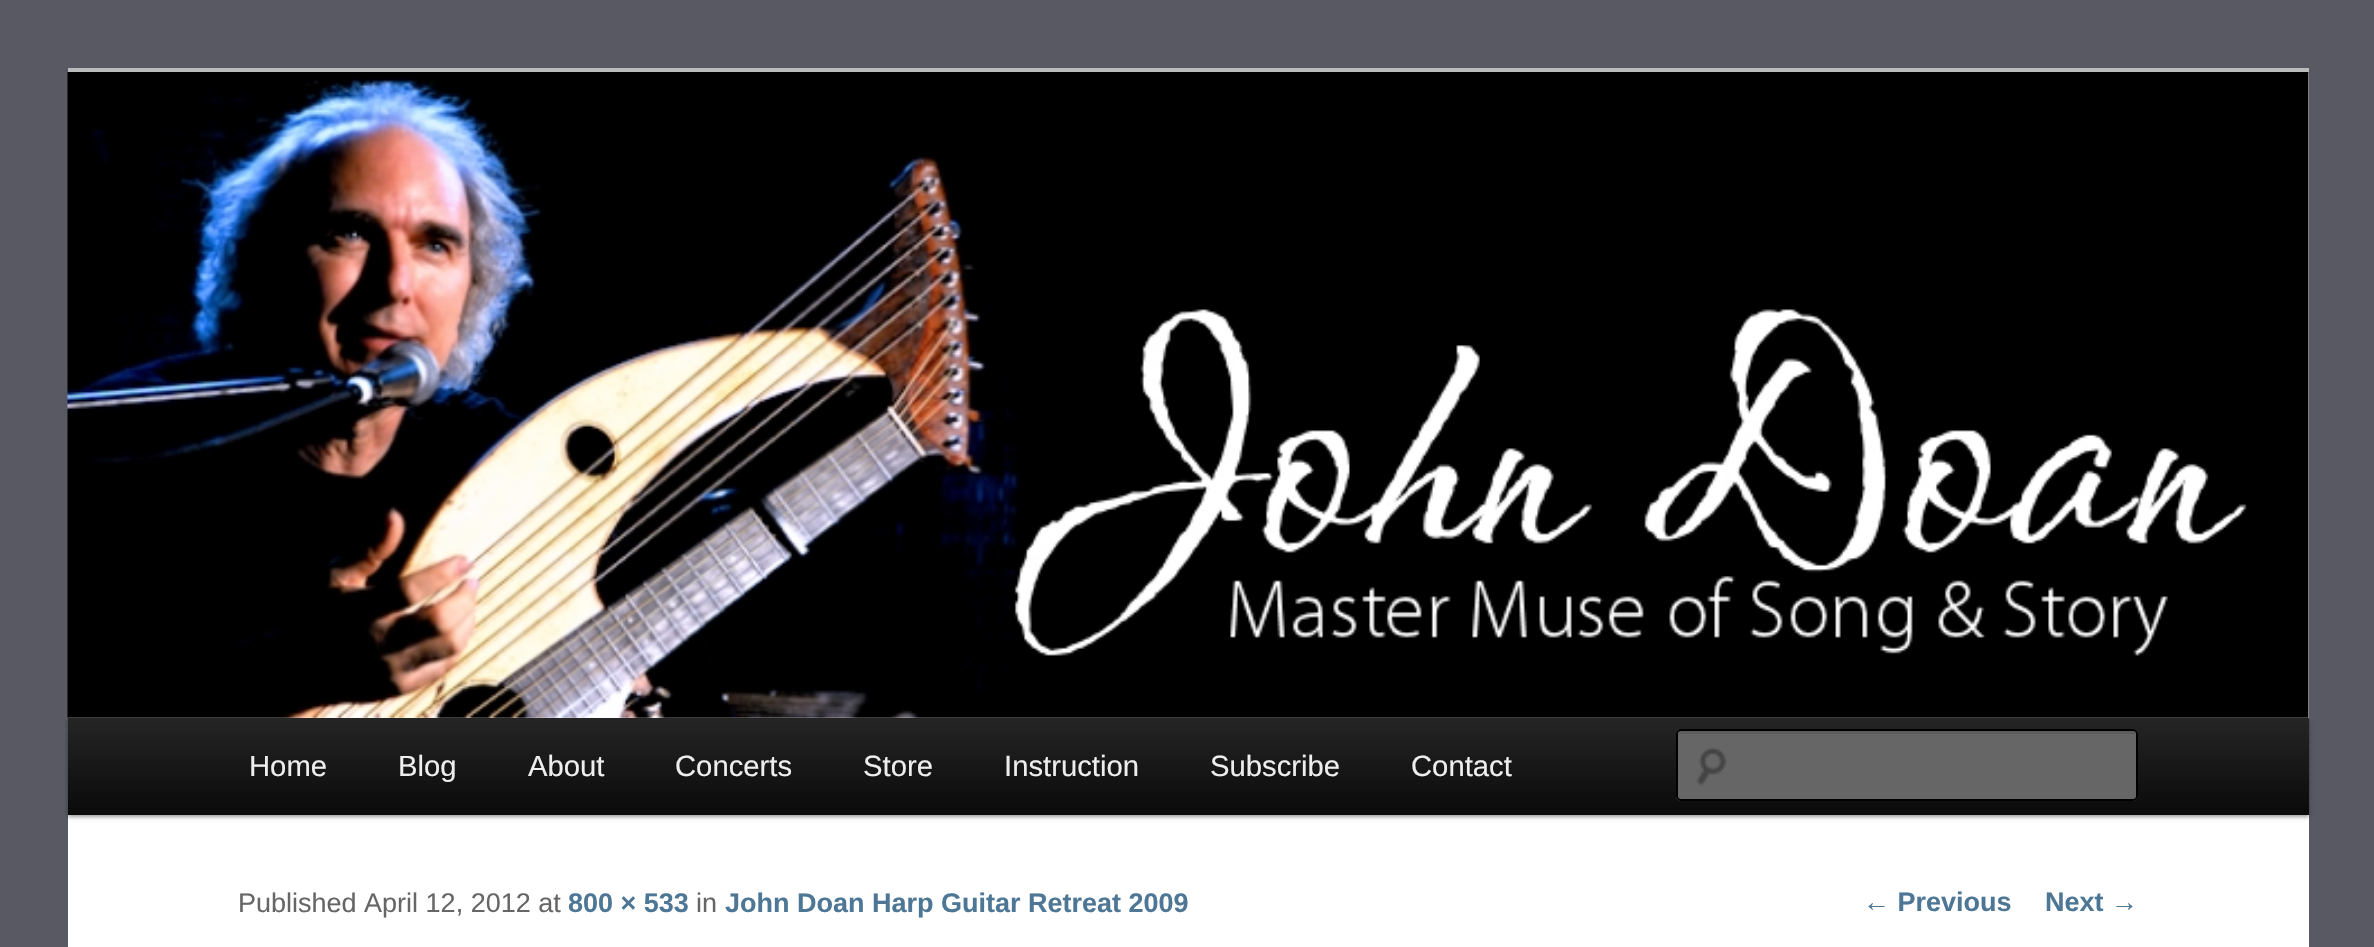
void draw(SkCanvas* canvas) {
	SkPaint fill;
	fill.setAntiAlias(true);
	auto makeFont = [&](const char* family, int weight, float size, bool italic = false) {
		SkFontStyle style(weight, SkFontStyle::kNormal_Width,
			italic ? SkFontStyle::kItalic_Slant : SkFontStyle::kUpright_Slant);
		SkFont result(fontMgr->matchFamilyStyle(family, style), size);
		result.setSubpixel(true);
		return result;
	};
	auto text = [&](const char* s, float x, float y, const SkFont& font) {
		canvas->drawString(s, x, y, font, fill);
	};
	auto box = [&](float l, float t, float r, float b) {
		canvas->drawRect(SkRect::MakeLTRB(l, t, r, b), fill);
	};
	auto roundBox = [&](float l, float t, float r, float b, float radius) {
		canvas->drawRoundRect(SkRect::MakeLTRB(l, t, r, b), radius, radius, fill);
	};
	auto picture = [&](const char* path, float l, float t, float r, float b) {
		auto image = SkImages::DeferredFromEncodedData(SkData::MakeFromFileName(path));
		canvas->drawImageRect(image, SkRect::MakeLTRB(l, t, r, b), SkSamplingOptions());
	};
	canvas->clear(0xFF595964);
	fill.setColor(0xFFFFFFFF);
	box(68, 73, 2309, 947);
	fill.setColor(0xFFBBBBBB);
	box(68, 68, 2309, 73);
	fill.setColor(0x66000000);
	fill.setMaskFilter(SkMaskFilter::MakeBlur(kNormal_SkBlurStyle, 2));
	canvas->drawRect(SkRect::MakeLTRB(68, 720, 2309, 817), fill);
	fill.setMaskFilter(nullptr);
	picture("image0.png", 67, 72, 2309, 718);
	{
		const SkColor colors[] = {0xFF252525, 0xFF0A0A0A};
		const float stops[] = {0, 1};
		const SkPoint ends[] = {{1188, 718}, {1188, 815}};
		fill.setShader(SkGradientShader::MakeLinear(ends, colors, stops, 2, SkTileMode::kClamp));
		fill.setAlpha(255);
	}
	box(68, 718, 2309, 815);
	fill.setShader(nullptr);
	fill.setColor(0xFF666666);
	roundBox(1676, 729, 2138, 801, 5);
	picture("image1.png", 1696, 747, 1727, 786);
	fill.setColor(0xFF5C5C5C);
	canvas->drawPath(SkPathBuilder().moveTo(1681, 734).lineTo(2133, 734).cubicTo(2134, 734, 2135, 735, 2135, 736).lineTo(2135, 733).cubicTo(2135, 732, 2134, 731, 2133, 731).lineTo(1681, 731).cubicTo(1680, 731, 1679, 732, 1679, 733).lineTo(1679, 735).close().detach(), fill);
	fill.setStyle(SkPaint::kStroke_Style);
	fill.setStrokeWidth(2);
	fill.setColor(0xFF000000);
	canvas->drawRoundRect(SkRect::MakeLTRB(1677, 730, 2137, 800), 4, 4, fill);
	auto font1 = makeFont("Liberation Sans", 400, 29.25f);
	fill.setStyle(SkPaint::kFill_Style);
	fill.setColor(0xFFEEEEEE);
	text("Home", 249, 776, font1);
	text("Blog", 398, 776, font1);
	text("About", 528, 776, font1);
	text("Concerts", 675, 776, font1);
	text("Store", 863, 776, font1);
	text("Instruction", 1004, 776, font1);
	text("Subscribe", 1210, 776, font1);
	text("Contact", 1411, 776, font1);
	auto font2 = makeFont("Liberation Sans", 400, 27);
	fill.setColor(0xFF666666);
	text("Published April 12, 2012 at", 238, 912, font2);
	auto font3 = makeFont("Liberation Sans", 700, 27);
	fill.setColor(0xFF4E7796);
	text("800 × 533", 568, 912, font3);
	fill.setColor(0xFF666666);
	text("in", 696, 912, font2);
	fill.setColor(0xFF4E7796);
	text("John Doan Harp Guitar Retreat 2009", 725, 912, font3);
	text("← Previous", 1863, 911, font3);
	text("Next →", 2045, 911, font3);
}
